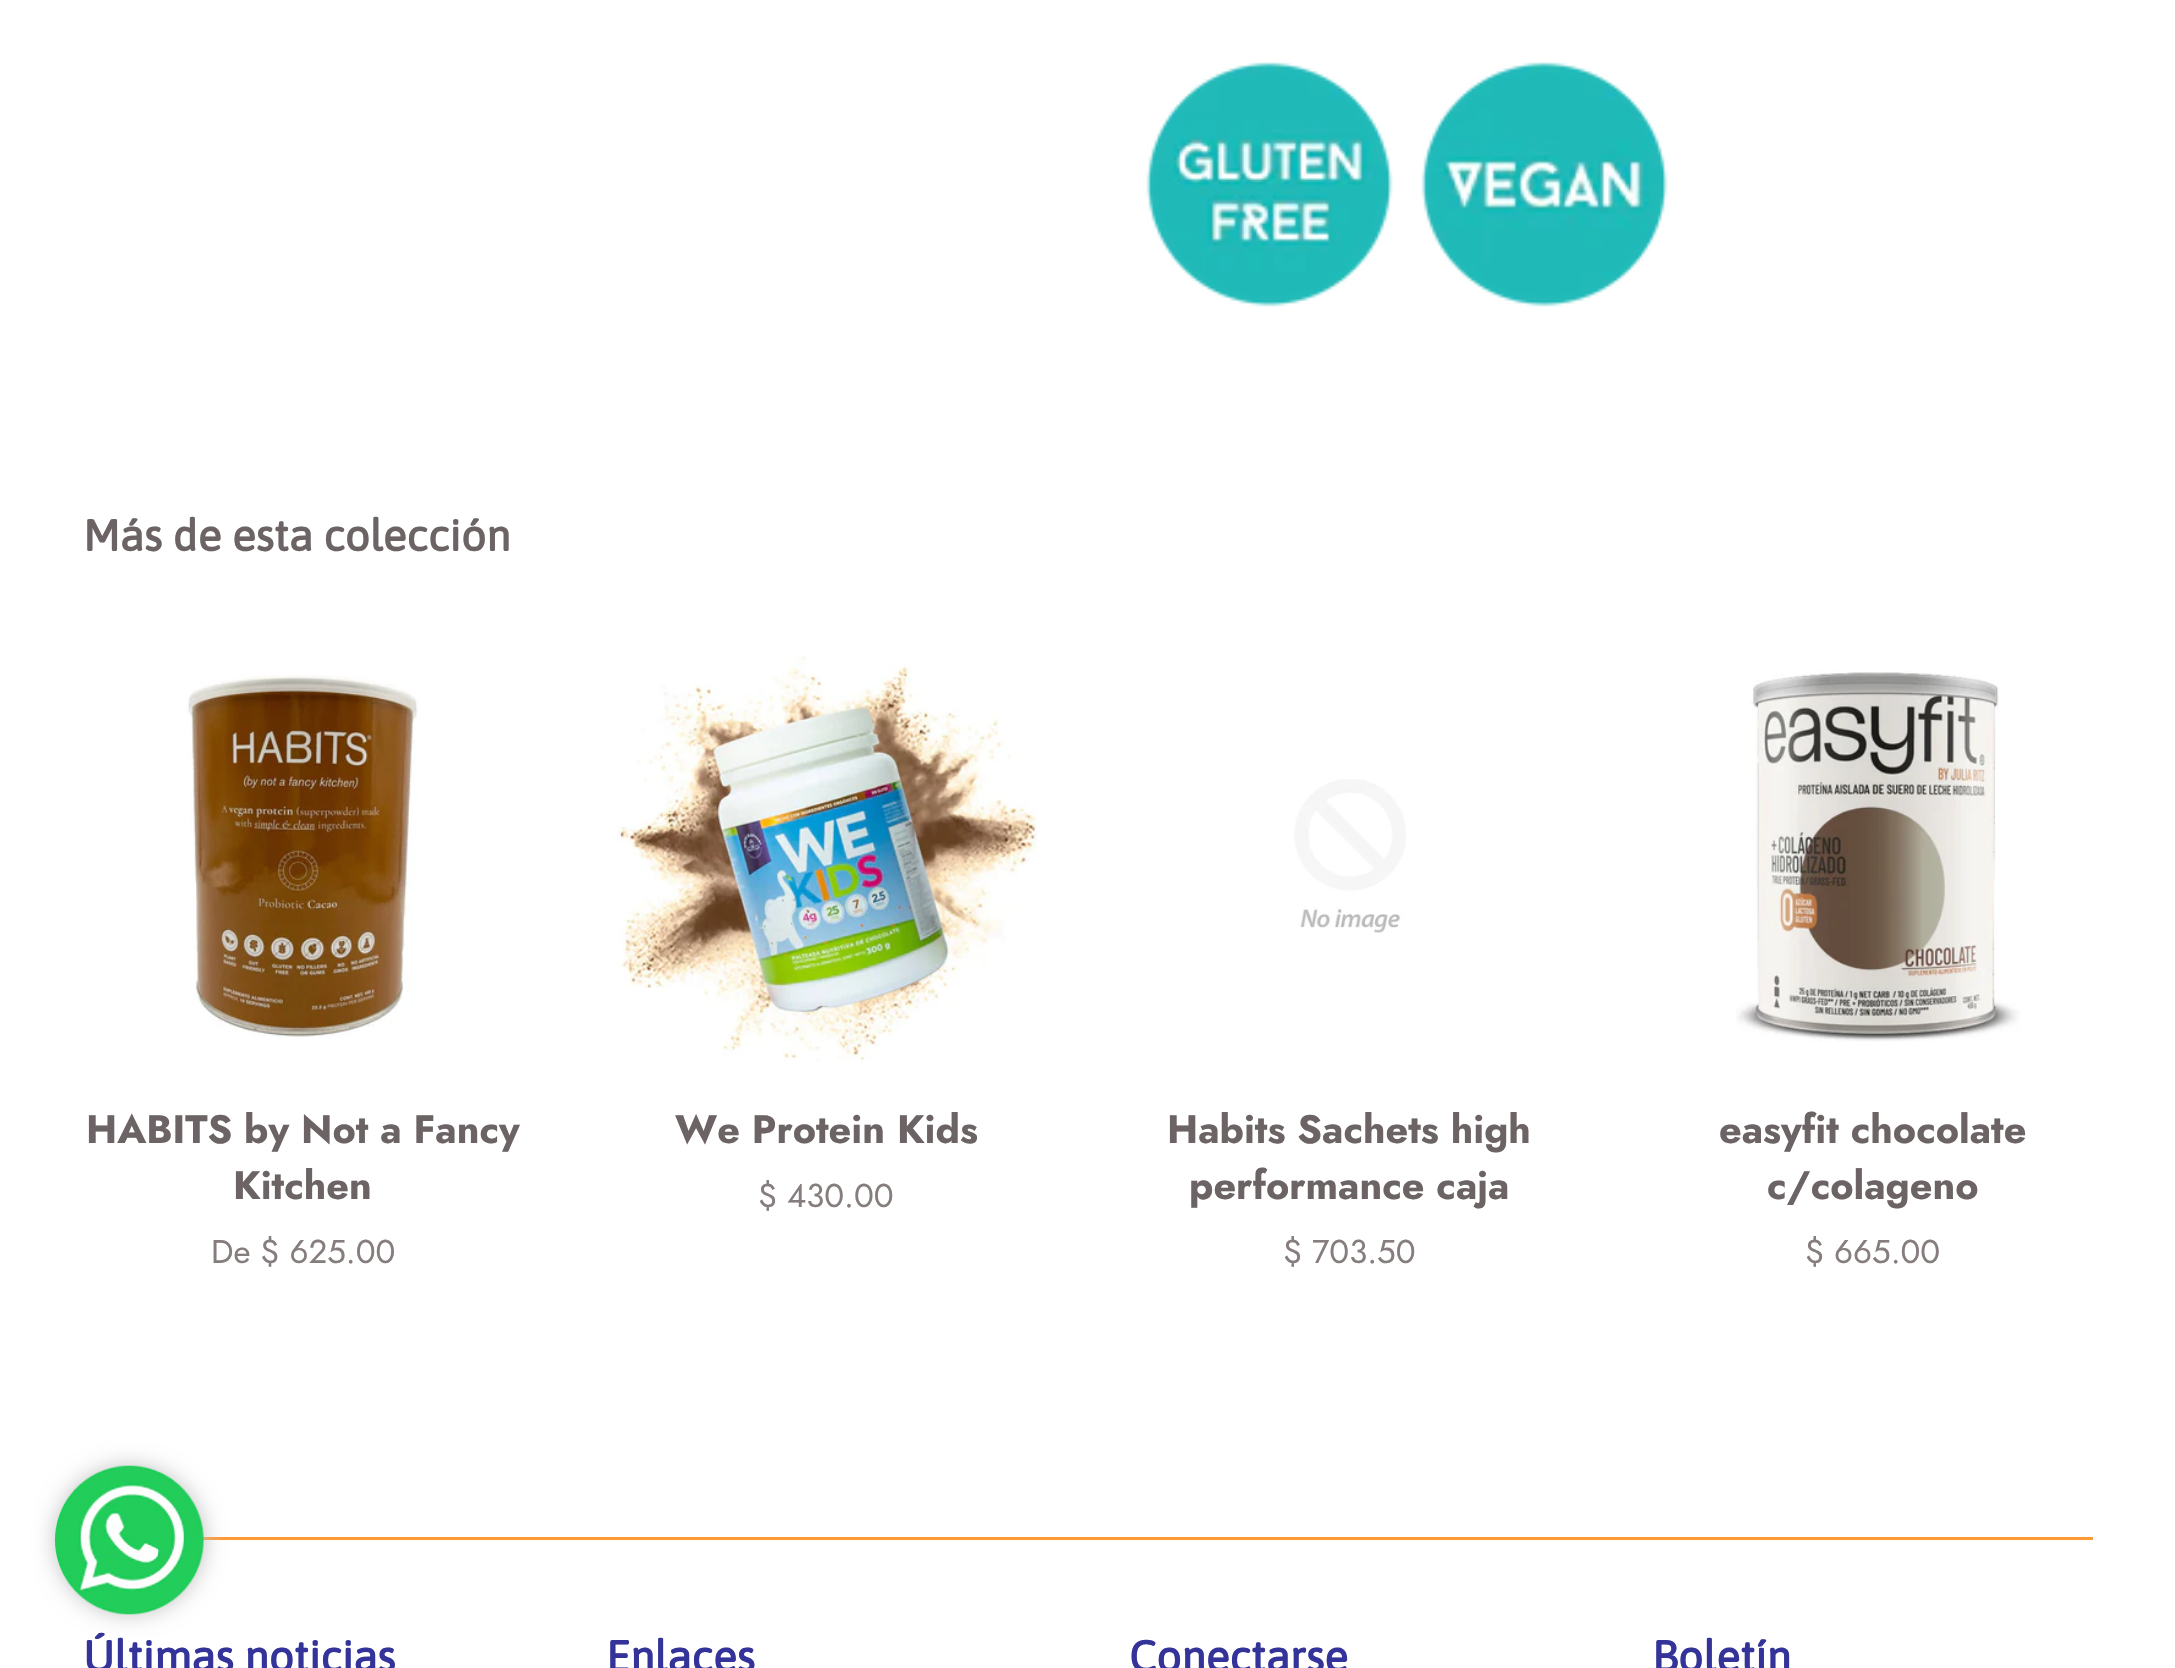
void draw(SkCanvas* canvas) {
	SkPaint fill;
	fill.setAntiAlias(true);
	auto makeFont = [&](const char* family, int weight, float size, bool italic = false) {
		SkFontStyle style(weight, SkFontStyle::kNormal_Width,
			italic ? SkFontStyle::kItalic_Slant : SkFontStyle::kUpright_Slant);
		SkFont result(fontMgr->matchFamilyStyle(family, style), size);
		result.setSubpixel(true);
		return result;
	};
	auto text = [&](const char* s, float x, float y, const SkFont& font) {
		canvas->drawString(s, x, y, font, fill);
	};
	auto box = [&](float l, float t, float r, float b) {
		canvas->drawRect(SkRect::MakeLTRB(l, t, r, b), fill);
	};
	auto picture = [&](const char* path, float l, float t, float r, float b) {
		auto image = SkImages::DeferredFromEncodedData(SkData::MakeFromFileName(path));
		canvas->drawImageRect(image, SkRect::MakeLTRB(l, t, r, b), SkSamplingOptions());
	};
	canvas->clear(0xFFFFFFFF);
	picture("image0.png", 1146, 62, 1393, 307);
	picture("image1.png", 1421, 62, 1668, 307);
	picture("image2.png", 187, 675, 420, 1037);
	picture("image3.png", 617, 655, 1038, 1062);
	picture("image4.png", 1294, 779, 1406, 933);
	picture("image5.png", 1736, 671, 2020, 1042);
	fill.setColor(0xFFFF9933);
	box(203, 1537, 2093, 1540);
	fill.setColor(0xFFC2C2C2);
	fill.setMaskFilter(SkMaskFilter::MakeBlur(kNormal_SkBlurStyle, 11));
	canvas->drawRoundRect(SkRect::MakeLTRB(55, 1466, 204, 1614), 74, 74, fill);
	fill.setMaskFilter(nullptr);
	picture("image6.png", 55, 1465, 204, 1615);
	auto font1 = makeFont("Asap", 700, 44);
	fill.setColor(0xFF6C6464);
	text("Más de esta colección", 83, 551, font1);
	auto font2 = makeFont("Jost", 700, 39.6f);
	text("HABITS by Not a Fancy", 86, 1143, font2);
	text("Kitchen", 233, 1199, font2);
	auto font3 = makeFont("Jost", 400, 33);
	fill.setColor(0xFF867D7D);
	text("De $ 625.00", 211, 1263, font3);
	fill.setColor(0xFF6C6464);
	text("We Protein Kids", 675, 1143, font2);
	fill.setColor(0xFF867D7D);
	text("$ 430.00", 758, 1207, font3);
	fill.setColor(0xFF6C6464);
	text("Habits Sachets high", 1167, 1143, font2);
	text("performance caja", 1189, 1199, font2);
	fill.setColor(0xFF867D7D);
	text("$ 703.50", 1283, 1263, font3);
	fill.setColor(0xFF6C6464);
	text("easyfit chocolate", 1719, 1143, font2);
	text("c/colageno", 1767, 1199, font2);
	fill.setColor(0xFF867D7D);
	text("$ 665.00", 1805, 1263, font3);
	fill.setColor(0xFF333399);
	text("Últimas noticias", 83, 1672, font1);
	text("Enlaces", 606, 1672, font1);
	text("Conectarse", 1129, 1672, font1);
	text("Boletín", 1652, 1672, font1);
}
